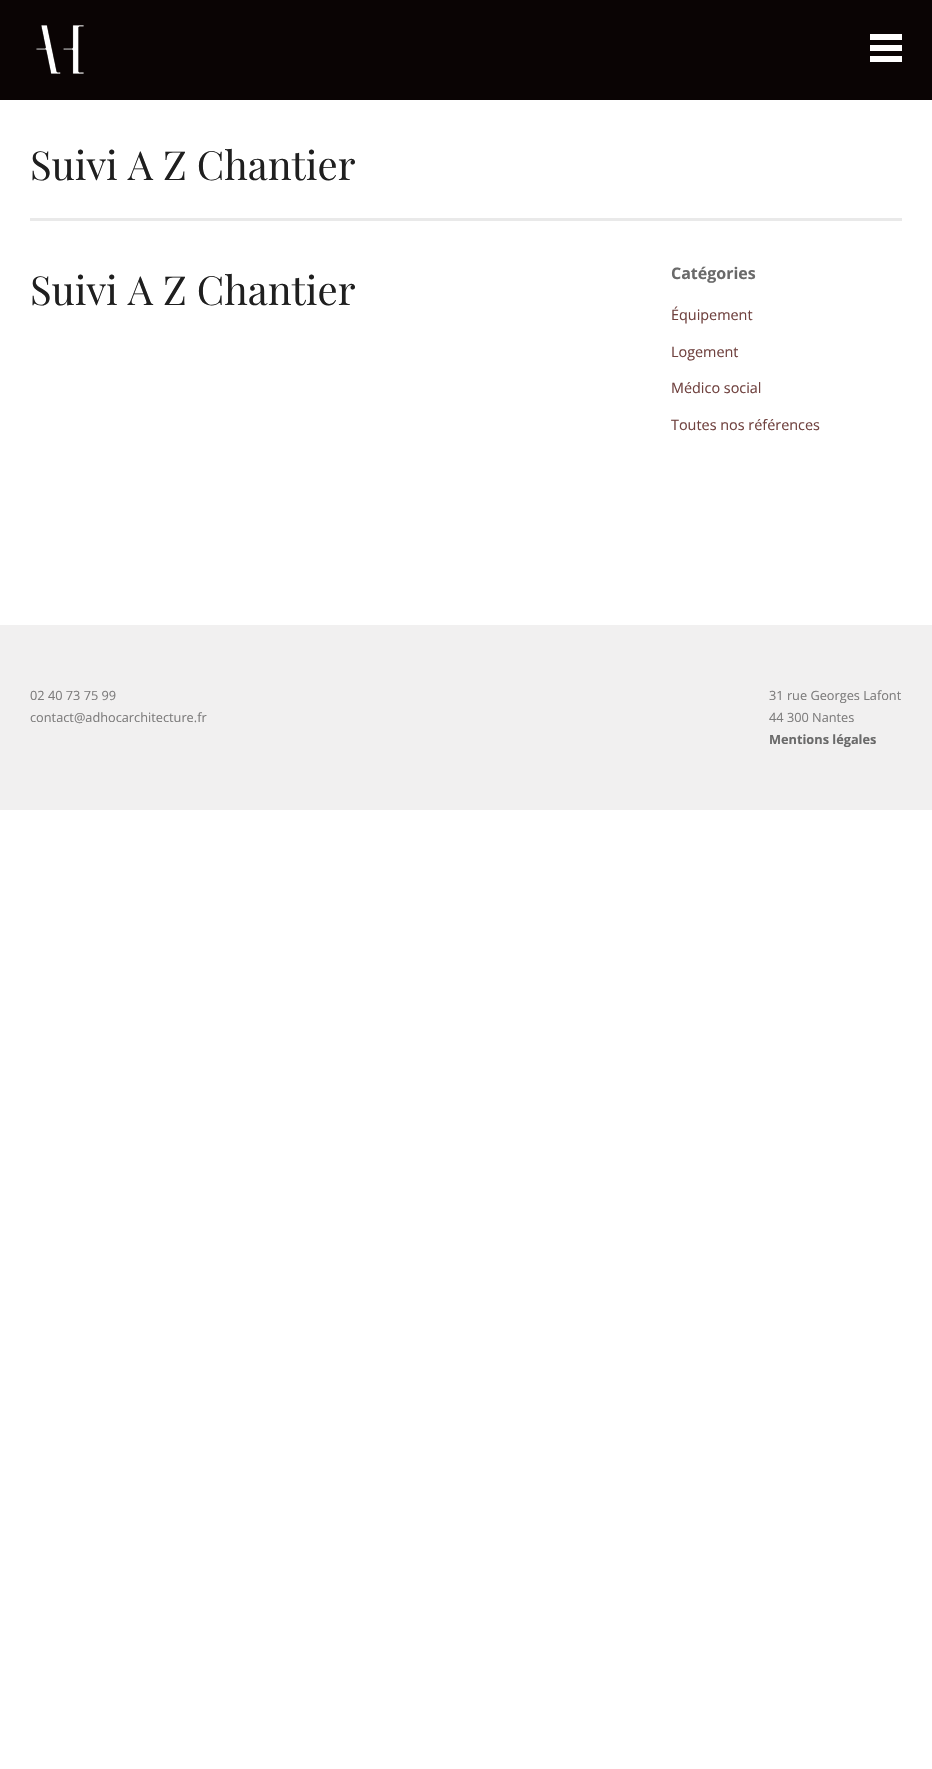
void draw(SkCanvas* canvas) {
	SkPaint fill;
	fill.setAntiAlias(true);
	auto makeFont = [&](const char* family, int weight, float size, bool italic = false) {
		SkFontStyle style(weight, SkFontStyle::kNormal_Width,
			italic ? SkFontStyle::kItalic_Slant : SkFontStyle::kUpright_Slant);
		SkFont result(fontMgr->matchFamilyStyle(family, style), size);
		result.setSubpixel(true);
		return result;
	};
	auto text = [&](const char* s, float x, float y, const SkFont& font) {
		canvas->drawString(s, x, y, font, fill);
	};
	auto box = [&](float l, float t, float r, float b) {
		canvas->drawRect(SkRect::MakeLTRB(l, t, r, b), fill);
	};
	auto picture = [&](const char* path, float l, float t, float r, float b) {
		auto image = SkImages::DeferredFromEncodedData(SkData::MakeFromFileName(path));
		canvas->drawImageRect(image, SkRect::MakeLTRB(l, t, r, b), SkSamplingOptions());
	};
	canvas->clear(0xFFFFFFFF);
	fill.setColor(0xFF0A0404);
	box(0, 0, 932, 100);
	picture("image0.png", 36, 25, 84, 74);
	picture("image1.png", 870, 34, 902, 62);
	fill.setColor(0xFFE9E9E9);
	box(30, 218, 902, 221);
	fill.setColor(0xFFF1F0F0);
	box(0, 625, 932, 810);
	auto font1 = makeFont("Playfair Display", 400, 40);
	fill.setColor(0xFF1F1F1F);
	text("Suivi A Z Chantier", 30, 180, font1);
	text("Suivi A Z Chantier", 30, 305, font1);
	auto font2 = makeFont("Open Sans", 700, 16);
	fill.setColor(0xFF6A6A6A);
	text("Catégories", 671, 279, font2);
	auto font3 = makeFont("Open Sans", 400, 14.4f);
	fill.setColor(0xFF70423F);
	text("Équipement", 671, 320, font3);
	text("Logement", 671, 357, font3);
	text("Médico social", 671, 393, font3);
	text("Toutes nos références", 671, 430, font3);
	auto font4 = makeFont("Open Sans", 400, 12.75f);
	fill.setColor(0xFF7E7D7D);
	text("02 40 73 75 99", 30, 700, font4);
	text("contact@adhocarchitecture.fr", 30, 722, font4);
	text("31 rue Georges Lafont", 769, 700, font4);
	text("44 300 Nantes", 769, 722, font4);
	auto font5 = makeFont("Open Sans", 700, 12.75f);
	fill.setColor(0xFF6A6A6A);
	text("Mentions légales", 769, 744, font5);
}
